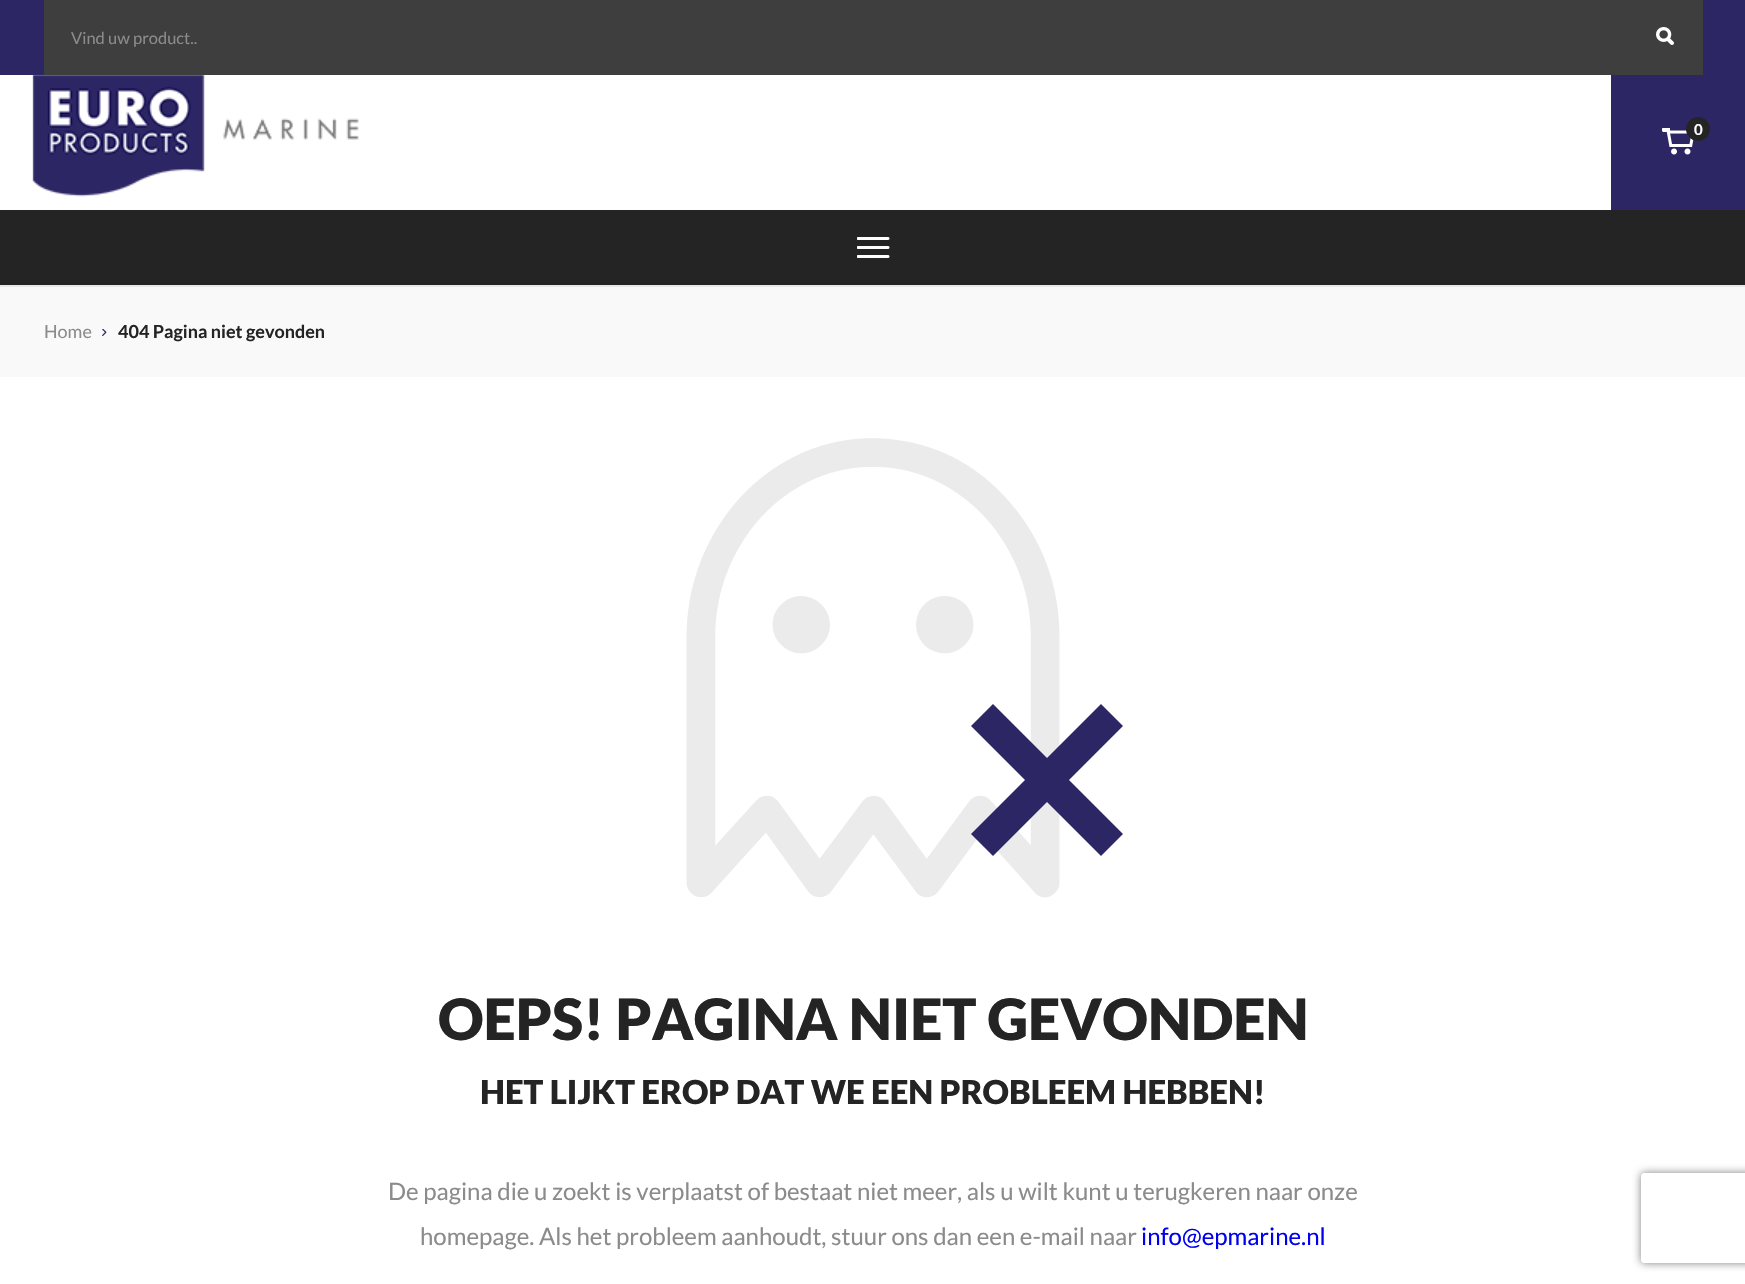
void draw(SkCanvas* canvas) {
	SkPaint fill;
	fill.setAntiAlias(true);
	auto makeFont = [&](const char* family, int weight, float size, bool italic = false) {
		SkFontStyle style(weight, SkFontStyle::kNormal_Width,
			italic ? SkFontStyle::kItalic_Slant : SkFontStyle::kUpright_Slant);
		SkFont result(fontMgr->matchFamilyStyle(family, style), size);
		result.setSubpixel(true);
		return result;
	};
	auto text = [&](const char* s, float x, float y, const SkFont& font) {
		canvas->drawString(s, x, y, font, fill);
	};
	auto box = [&](float l, float t, float r, float b) {
		canvas->drawRect(SkRect::MakeLTRB(l, t, r, b), fill);
	};
	auto roundBox = [&](float l, float t, float r, float b, float radius) {
		canvas->drawRoundRect(SkRect::MakeLTRB(l, t, r, b), radius, radius, fill);
	};
	auto picture = [&](const char* path, float l, float t, float r, float b) {
		auto image = SkImages::DeferredFromEncodedData(SkData::MakeFromFileName(path));
		canvas->drawImageRect(image, SkRect::MakeLTRB(l, t, r, b), SkSamplingOptions());
	};
	canvas->clear(0xFFFFFFFF);
	fill.setColor(0xFF2D2664);
	box(0, 0, 1745, 75);
	fill.setColor(0xFF3E3E3E);
	box(44, 0, 1703, 75);
	picture("image1.png", 32, 74, 359, 197);
	roundBox(44, 0, 1703, 75, 6);
	picture("image0.png", 1656, 27, 1674, 45);
	fill.setColor(0xFF2D2664);
	box(1611, 75, 1745, 210);
	picture("image2.png", 1662, 128, 1694, 155);
	fill.setColor(0xFF242424);
	canvas->drawCircle(1698, 129, 12, fill);
	box(0, 210, 1745, 285);
	picture("image3.png", 857, 237, 890, 258);
	fill.setColor(0xFFF9F9F9);
	box(0, 287, 1745, 377);
	fill.setColor(0xFFE8E8E8);
	box(0, 285, 1745, 287);
	picture("image4.png", 102, 329, 107, 336);
	picture("image5.png", 686, 438, 1060, 898);
	fill.setColor(0xFF2D2664);
	canvas->drawPath(SkPathBuilder(SkPathFillType::kEvenOdd).moveTo(1123, 726).lineTo(1101, 704).lineTo(1047, 758).lineTo(993, 704).lineTo(971, 726).lineTo(1025, 780).lineTo(971, 834).lineTo(993, 856).lineTo(1047, 802).lineTo(1101, 856).lineTo(1123, 834).lineTo(1069, 780).close().detach(), fill);
	canvas->save();
	canvas->clipPath(SkPathBuilder(SkPathFillType::kEvenOdd).moveTo(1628, 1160).lineTo(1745, 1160).lineTo(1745, 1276).lineTo(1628, 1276).close().moveTo(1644, 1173).lineTo(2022, 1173).cubicTo(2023.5f, 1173, 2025, 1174.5f, 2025, 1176).lineTo(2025, 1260).cubicTo(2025, 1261.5f, 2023.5f, 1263, 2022, 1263).lineTo(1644, 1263).cubicTo(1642.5f, 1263, 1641, 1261.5f, 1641, 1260).lineTo(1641, 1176).cubicTo(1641, 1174.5f, 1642.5f, 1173, 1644, 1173).close().detach(), true);
	fill.setColor(0xFF808080);
	fill.setMaskFilter(SkMaskFilter::MakeBlur(kNormal_SkBlurStyle, 4));
	canvas->drawRoundRect(SkRect::MakeLTRB(1641, 1173, 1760, 1263), 3, 3, fill);
	fill.setMaskFilter(nullptr);
	canvas->restore();
	auto font1 = makeFont("Lato", 400, 16.5f);
	fill.setColor(0xFF8B8B8B);
	text("Vind uw product..", 71, 44, font1);
	auto font2 = makeFont("Lato", 700, 15);
	fill.setColor(0xFFFFFFFF);
	text("0", 1694, 135, font2);
	auto font3 = makeFont("Lato", 400, 18);
	fill.setColor(0xFF8B8B8B);
	text("Home", 44, 338, font3);
	auto font4 = makeFont("Lato", 700, 18);
	fill.setColor(0xFF242424);
	text("404 Pagina niet gevonden", 118, 338, font4);
	auto font5 = makeFont("Lato", 900, 57);
	text("OEPS! PAGINA NIET GEVONDEN", 438, 1040, font5);
	auto font6 = makeFont("Lato", 900, 33);
	text("HET LIJKT EROP DAT WE EEN PROBLEEM HEBBEN!", 480, 1104, font6);
	auto font7 = makeFont("Lato", 400, 24);
	fill.setColor(0xFF8B8B8B);
	text("De pagina die u zoekt is verplaatst of bestaat niet meer, als u wilt kunt u terugkeren naar onze", 388, 1200, font7);
	text("homepage. Als het probleem aanhoudt, stuur ons dan een e-mail naar", 420, 1245, font7);
	fill.setColor(0xFF0000EE);
	text("info@epmarine.nl", 1141, 1245, font7);
}
